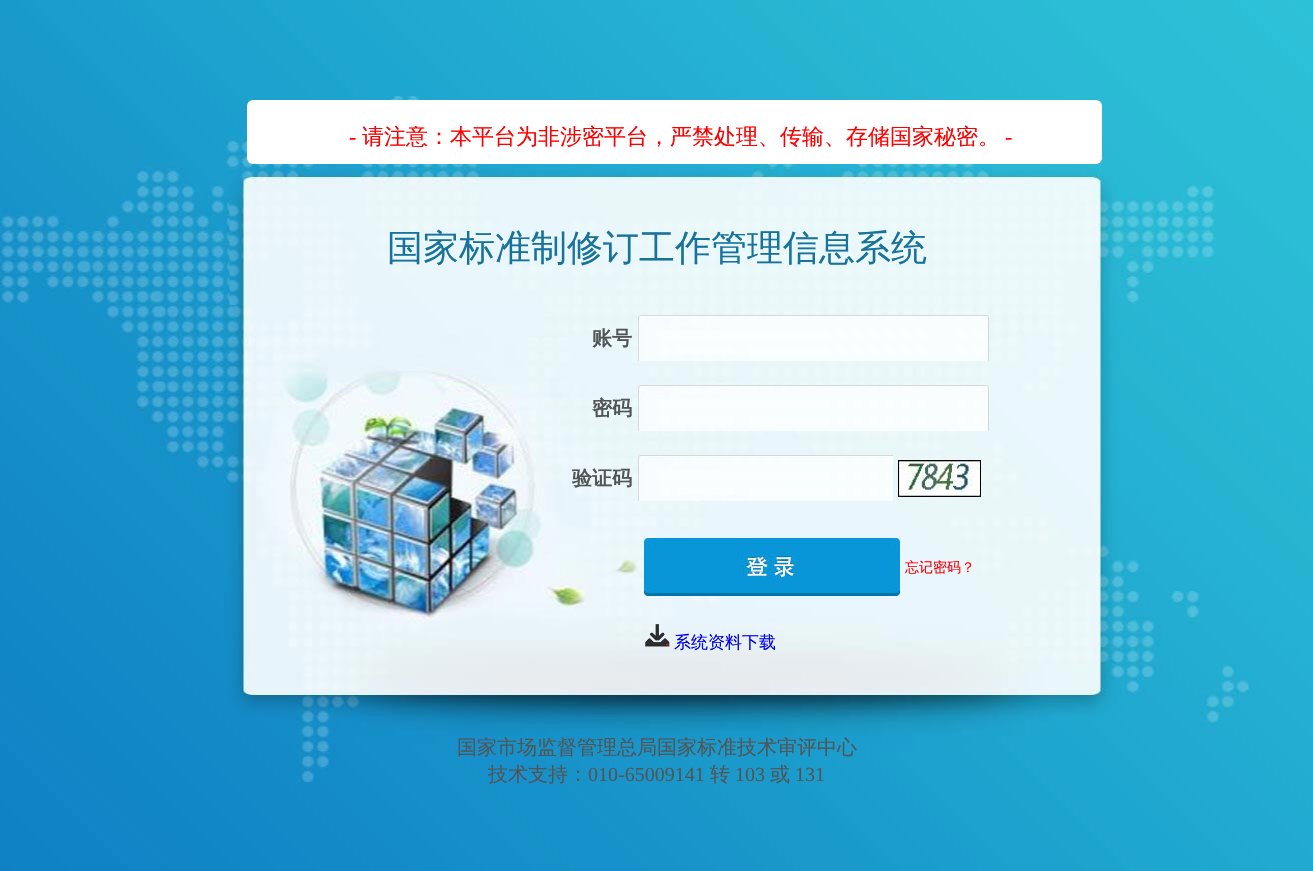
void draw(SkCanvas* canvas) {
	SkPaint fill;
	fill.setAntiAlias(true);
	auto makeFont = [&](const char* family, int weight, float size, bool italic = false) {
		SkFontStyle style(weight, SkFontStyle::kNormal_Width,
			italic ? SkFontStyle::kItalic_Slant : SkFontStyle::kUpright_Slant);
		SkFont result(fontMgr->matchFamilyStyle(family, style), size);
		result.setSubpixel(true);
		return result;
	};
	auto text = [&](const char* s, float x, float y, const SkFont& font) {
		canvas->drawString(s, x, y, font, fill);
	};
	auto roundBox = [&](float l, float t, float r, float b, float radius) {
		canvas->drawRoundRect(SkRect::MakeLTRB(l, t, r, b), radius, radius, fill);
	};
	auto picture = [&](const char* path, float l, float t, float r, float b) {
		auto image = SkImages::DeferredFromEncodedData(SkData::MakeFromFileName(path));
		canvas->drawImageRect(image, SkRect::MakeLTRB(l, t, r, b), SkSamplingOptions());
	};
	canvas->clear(0xFFFFFFFF);
	picture("image0.png", 0, 0, 1313, 871);
	fill.setColor(0xFFFFFFFF);
	roundBox(247, 100, 1102, 164, 6);
	picture("image1.png", 638, 315, 989, 361);
	picture("image1.png", 638, 385, 989, 431);
	picture("image2.png", 638, 455, 893, 501);
	picture("image3.png", 898, 460, 981, 497);
	picture("image4.png", 644, 538, 900, 596);
	picture("image5.png", 645, 624, 670, 647);
	auto font1 = makeFont("Liberation Serif", 400, 22);
	fill.setColor(0xFFFF0000);
	text("-", 349, 144, font1);
	auto font2 = makeFont("WenQuanYi Zen Hei", 500, 22);
	text("请注意：本平台为非涉密平台，严禁处理、传输、存储国家秘密。", 362, 144, font2);
	text("-", 1005, 144, font1);
	auto font3 = makeFont("WenQuanYi Zen Hei", 500, 36);
	fill.setColor(0xFF18739C);
	text("国家标准制修订工作管理信息系统", 387, 260, font3);
	auto font4 = makeFont("WenQuanYi Zen Hei", 700, 20);
	fill.setColor(0xFF515556);
	text("账号", 592, 345, font4);
	text("密码", 592, 415, font4);
	text("验证码", 572, 485, font4);
	auto font5 = makeFont("WenQuanYi Zen Hei", 500, 14);
	fill.setColor(0xFFFF0000);
	text("忘记密码？", 905, 572, font5);
	auto font6 = makeFont("WenQuanYi Zen Hei", 500, 17);
	fill.setColor(0xFF0000EE);
	text("系统资料下载", 674, 648, font6);
	auto font7 = makeFont("WenQuanYi Zen Hei", 500, 20);
	fill.setColor(0xFF515556);
	text("国家市场监督管理总局国家标准技术审评中心", 457, 754, font7);
	text("技术支持：", 488, 781, font7);
	auto font8 = makeFont("Liberation Serif", 400, 20);
	text("010-65009141", 588, 781, font8);
	text("转", 710, 781, font7);
	text("103", 735, 781, font8);
	text("或", 770, 781, font7);
	text("131", 795, 781, font8);
}
